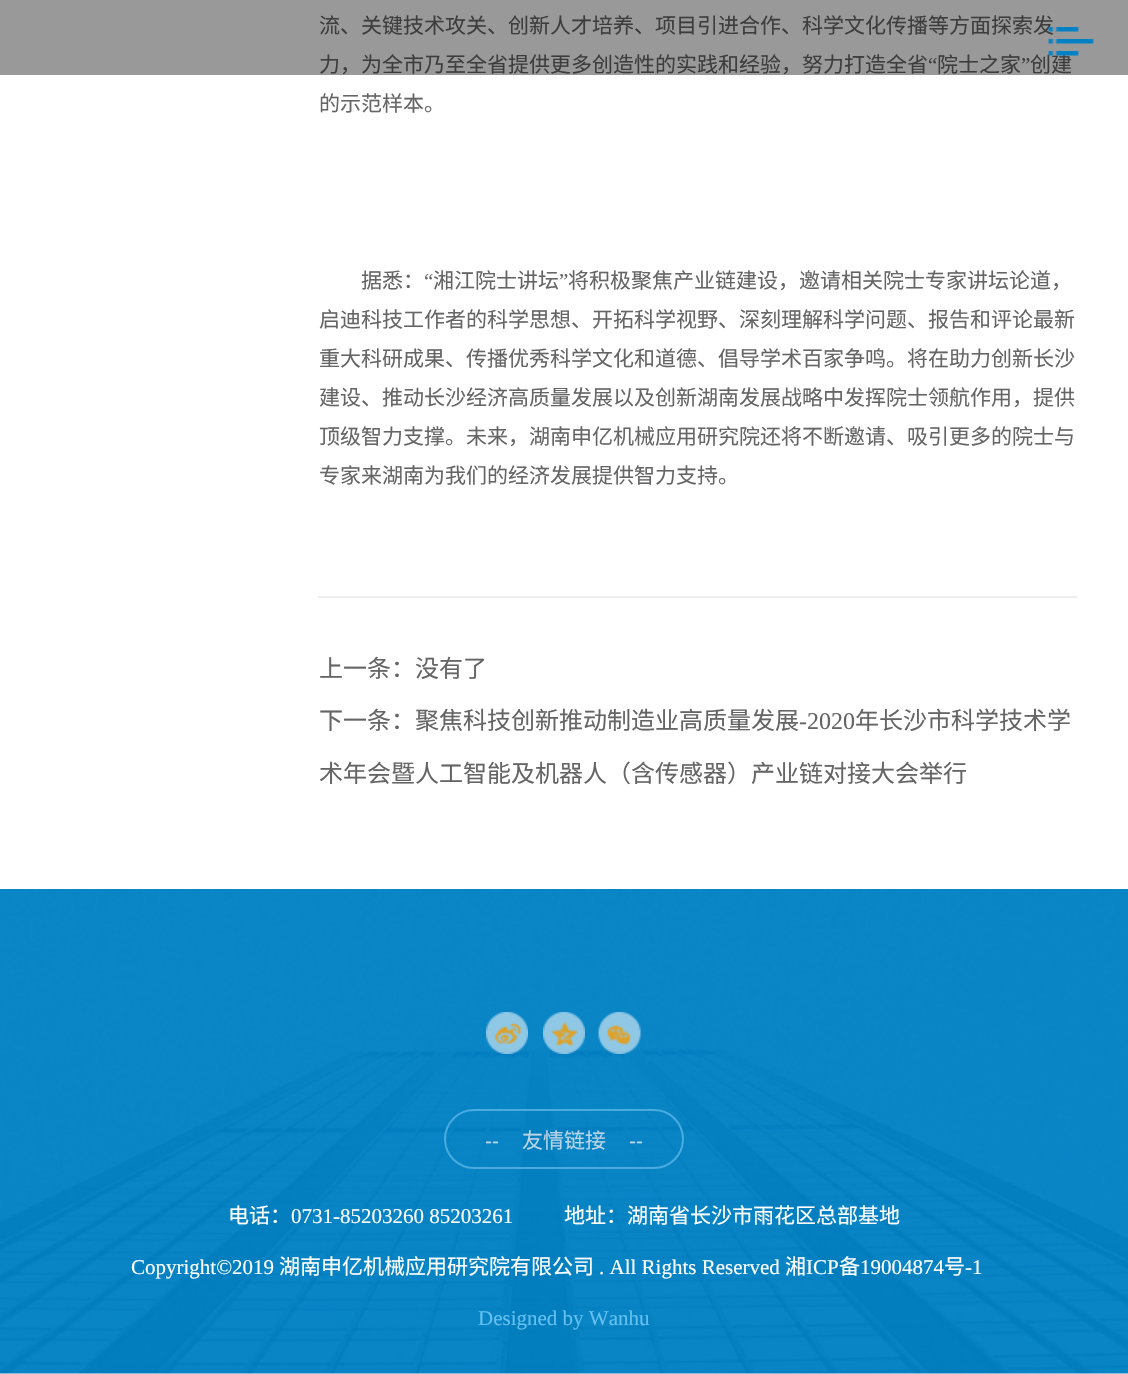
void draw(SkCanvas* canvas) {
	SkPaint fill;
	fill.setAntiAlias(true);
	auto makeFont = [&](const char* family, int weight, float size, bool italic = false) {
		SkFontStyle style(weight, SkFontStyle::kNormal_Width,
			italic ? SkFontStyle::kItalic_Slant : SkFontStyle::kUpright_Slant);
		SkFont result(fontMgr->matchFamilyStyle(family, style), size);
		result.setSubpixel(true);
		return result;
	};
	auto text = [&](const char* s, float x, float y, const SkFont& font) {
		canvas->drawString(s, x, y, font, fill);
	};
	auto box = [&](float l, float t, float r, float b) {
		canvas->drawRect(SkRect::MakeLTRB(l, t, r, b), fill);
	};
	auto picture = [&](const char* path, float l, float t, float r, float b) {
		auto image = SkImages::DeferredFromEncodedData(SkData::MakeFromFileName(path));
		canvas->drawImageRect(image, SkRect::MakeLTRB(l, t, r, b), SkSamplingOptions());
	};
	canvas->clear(0xFFFFFFFF);
	fill.setColor(0xFF999999);
	box(0, 0, 1128, 75);
	fill.setColor(0xFFEEEEEE);
	box(318, 596, 1077, 598);
	picture("image1.png", 1048, 39, 1094, 44);
	picture("image3.png", 0, 889, 1128, 1374);
	picture("image4.png", 486, 1012, 528, 1054);
	picture("image5.png", 543, 1012, 585, 1054);
	picture("image6.png", 598, 1012, 641, 1054);
	fill.setStyle(SkPaint::kStroke_Style);
	fill.setStrokeWidth(2);
	fill.setColor(0xFF49ABE0);
	canvas->drawRoundRect(SkRect::MakeLTRB(445, 1110, 683, 1168), 29, 29, fill);
	auto font1 = makeFont("Noto Sans CJK SC", 400, 21);
	fill.setStyle(SkPaint::kFill_Style);
	fill.setColor(0xFF3D3D3D);
	text("流、关键技术攻关、创新人才培养、项目引进合作、科学文化传播等方面探索发", 319, 33, font1);
	text("力，为全市乃至全省提供更多创造性的实践和经验，努力打造全省", 319, 72, font1);
	auto font2 = makeFont("Liberation Serif", 400, 21);
	text("“", 928, 72, font2);
	text("院士之家", 937, 72, font1);
	text("”", 1021, 72, font2);
	text("创建", 1030, 72, font1);
	fill.setColor(0xFF656565);
	text("的示范样本。", 319, 111, font1);
	text("据悉：", 361, 288, font1);
	text("“", 424, 288, font2);
	text("湘江院士讲坛", 433, 288, font1);
	text("”", 559, 288, font2);
	text("将积极聚焦产业链建设，邀请相关院士专家讲坛论道，", 568, 288, font1);
	text("启迪科技工作者的科学思想、开拓科学视野、深刻理解科学问题、报告和评论最新", 319, 327, font1);
	text("重大科研成果、传播优秀科学文化和道德、倡导学术百家争鸣。将在助力创新长沙", 319, 366, font1);
	text("建设、推动长沙经济高质量发展以及创新湖南发展战略中发挥院士领航作用，提供", 319, 405, font1);
	text("顶级智力支撑。未来，湖南申亿机械应用研究院还将不断邀请、吸引更多的院士与", 319, 444, font1);
	text("专家来湖南为我们的经济发展提供智力支持。", 319, 483, font1);
	auto font3 = makeFont("Noto Sans CJK SC", 400, 24);
	text("上一条：没有了", 319, 677, font3);
	text("下一条：聚焦科技创新推动制造业高质量发展", 319, 729, font3);
	auto font4 = makeFont("Liberation Serif", 400, 24);
	text("-2020", 799, 729, font4);
	text("年长沙市科学技术学", 855, 729, font3);
	text("术年会暨人工智能及机器人（含传感器）产业链对接大会举行", 319, 782, font3);
	picture("image0.png", 1048, 27, 1079, 32);
	picture("image2.png", 1048, 51, 1079, 56);
	auto font5 = makeFont("Liberation Sans", 400, 21);
	fill.setColor(0xFFBCD4E8);
	text("--", 485, 1148, font5);
	text("友情链接", 522, 1148, font1);
	text("--", 629, 1148, font5);
	fill.setColor(0xFFFFFFFF);
	text("电话：", 228, 1223, font1);
	text("0731-85203260 85203261", 291, 1223, font2);
	text("地址：湖南省长沙市雨花区总部基地", 564, 1223, font1);
	text("Copyright©2019", 131, 1274, font2);
	text("湖南申亿机械应用研究院有限公司", 279, 1274, font1);
	text(". All Rights Reserved", 599, 1274, font2);
	text("湘", 785, 1274, font1);
	text("ICP", 806, 1274, font2);
	text("备", 839, 1274, font1);
	text("19004874", 860, 1274, font2);
	text("号", 944, 1274, font1);
	text("-1", 965, 1274, font2);
	fill.setColor(0xFF65C1F1);
	text("Designed by Wanhu", 478, 1325, font2);
}
